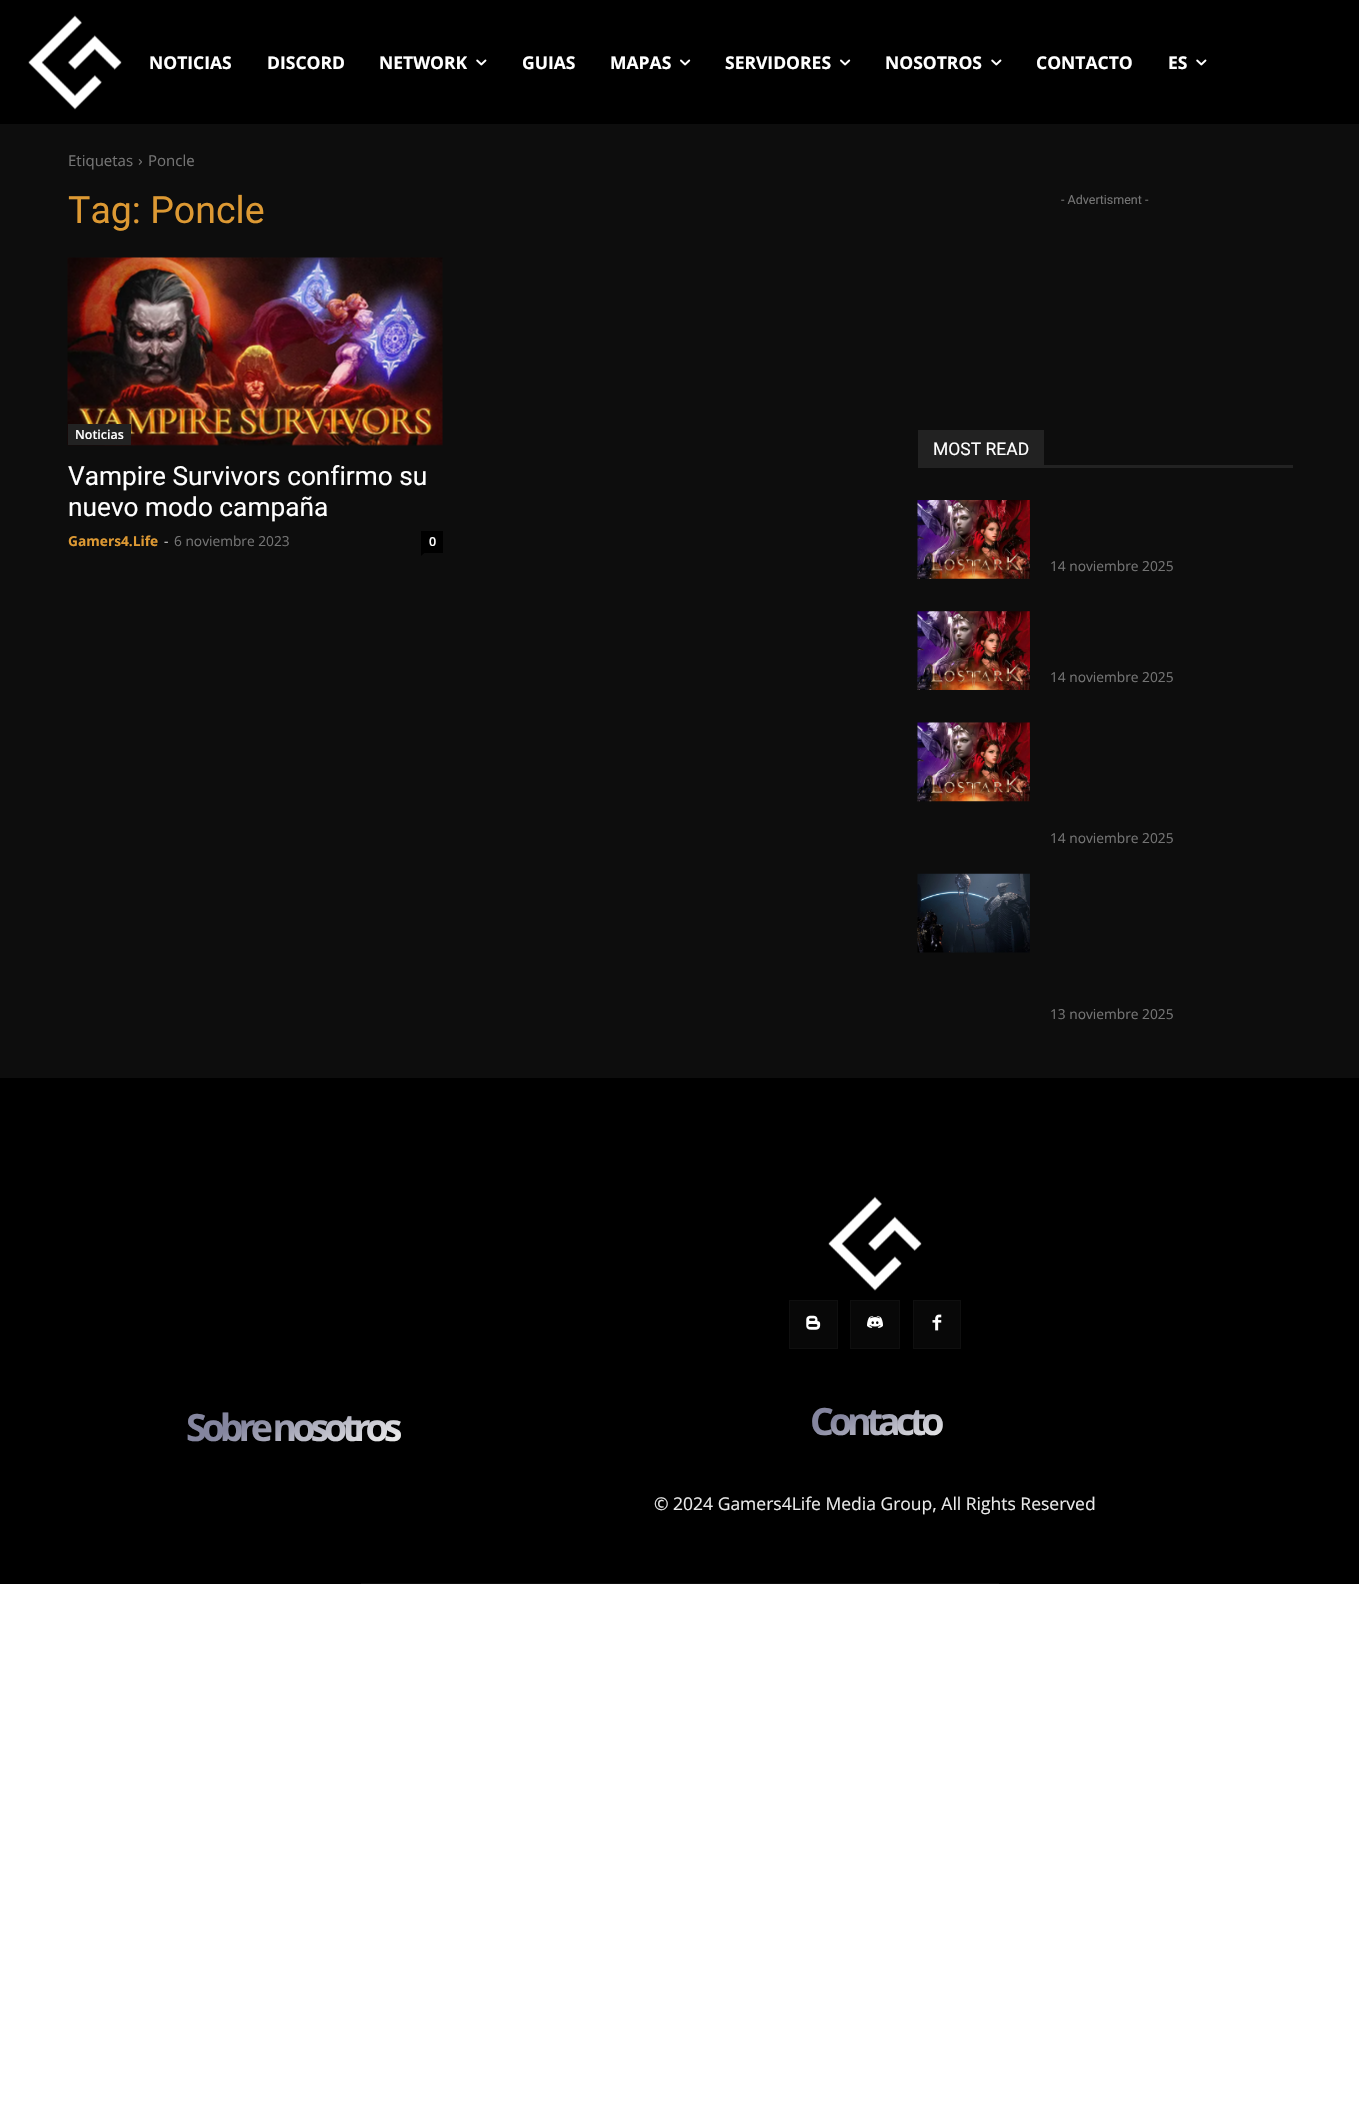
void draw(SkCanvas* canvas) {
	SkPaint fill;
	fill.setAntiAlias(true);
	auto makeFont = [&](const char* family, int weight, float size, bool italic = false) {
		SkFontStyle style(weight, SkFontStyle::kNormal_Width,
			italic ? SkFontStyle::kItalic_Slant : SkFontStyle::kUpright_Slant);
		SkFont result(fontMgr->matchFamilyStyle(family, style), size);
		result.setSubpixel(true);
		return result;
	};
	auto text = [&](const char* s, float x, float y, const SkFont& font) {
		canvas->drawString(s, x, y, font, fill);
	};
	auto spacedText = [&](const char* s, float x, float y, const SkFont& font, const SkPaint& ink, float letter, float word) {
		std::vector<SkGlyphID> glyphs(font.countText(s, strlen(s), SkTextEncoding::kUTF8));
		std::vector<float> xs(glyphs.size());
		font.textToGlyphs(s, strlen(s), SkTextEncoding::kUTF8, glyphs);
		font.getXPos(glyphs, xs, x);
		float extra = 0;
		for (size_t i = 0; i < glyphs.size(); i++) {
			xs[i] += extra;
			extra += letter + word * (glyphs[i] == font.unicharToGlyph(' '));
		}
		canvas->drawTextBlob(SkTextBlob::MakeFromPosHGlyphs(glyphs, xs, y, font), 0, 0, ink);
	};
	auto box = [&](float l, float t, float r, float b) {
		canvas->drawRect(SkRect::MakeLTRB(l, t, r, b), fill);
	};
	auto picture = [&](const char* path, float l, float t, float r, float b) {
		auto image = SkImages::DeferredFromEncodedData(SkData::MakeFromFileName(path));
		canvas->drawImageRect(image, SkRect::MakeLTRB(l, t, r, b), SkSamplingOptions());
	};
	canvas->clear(0xFFFFFFFF);
	fill.setColor(0xFF000000);
	box(0, 0, 1359, 124);
	picture("image0.png", 28, 15, 122, 110);
	picture("image1.png", 476, 59, 487, 66);
	picture("image2.png", 680, 59, 691, 66);
	picture("image2.png", 840, 59, 851, 66);
	picture("image1.png", 991, 59, 1002, 66);
	picture("image1.png", 1196, 59, 1207, 66);
	fill.setColor(0xFF0D0D0D);
	box(0, 124, 1359, 1078);
	picture("image3.png", 138, 159, 142, 165);
	picture("image4.png", 67, 257, 443, 446);
	fill.setColor(0xFF222222);
	box(68, 424, 131, 445);
	fill.setColor(0xFF000000);
	box(421, 531, 443, 553);
	canvas->drawPath(SkPathBuilder().moveTo(421, 552.5f).lineTo(425, 552.5f).lineTo(421, 556).close().detach(), fill);
	fill.setColor(0xFF222222);
	box(918, 465, 1293, 468);
	box(918, 430, 1044, 465);
	picture("image5.png", 917, 500, 1030, 579);
	picture("image6.png", 917, 611, 1030, 690);
	picture("image7.png", 917, 722, 1030, 802);
	picture("image8.png", 917, 873, 1030, 953);
	fill.setColor(0xFF000000);
	box(0, 1078, 1359, 1584);
	picture("image9.png", 828, 1196, 922, 1291);
	fill.setColor(0xFF080808);
	canvas->drawRect(SkRect::MakeLTRB(789.5f, 1300.5f, 837.5f, 1348.5f), fill);
	fill.setStyle(SkPaint::kStroke_Style);
	fill.setStrokeWidth(1);
	fill.setColor(0xFF0F0F0F);
	canvas->drawRect(SkRect::MakeLTRB(789.5f, 1300.5f, 837.5f, 1348.5f), fill);
	picture("image10.png", 806, 1315, 821, 1330);
	fill.setStyle(SkPaint::kFill_Style);
	fill.setColor(0xFF080808);
	canvas->drawRect(SkRect::MakeLTRB(850.5f, 1300.5f, 899.5f, 1348.5f), fill);
	fill.setStyle(SkPaint::kStroke_Style);
	fill.setColor(0xFF0F0F0F);
	canvas->drawRect(SkRect::MakeLTRB(850.5f, 1300.5f, 899.5f, 1348.5f), fill);
	picture("image11.png", 867, 1316, 883, 1328);
	fill.setStyle(SkPaint::kFill_Style);
	fill.setColor(0xFF080808);
	canvas->drawRect(SkRect::MakeLTRB(913.5f, 1300.5f, 960.5f, 1348.5f), fill);
	fill.setStyle(SkPaint::kStroke_Style);
	fill.setColor(0xFF0F0F0F);
	canvas->drawRect(SkRect::MakeLTRB(913.5f, 1300.5f, 960.5f, 1348.5f), fill);
	picture("image12.png", 932, 1314, 942, 1331);
	fill.setStyle(SkPaint::kFill_Style);
	fill.setColor(0xFF0D0D0D);
	box(361, 1583, 999, 1584);
	auto font1 = makeFont("Open Sans", 700, 17.5f);
	fill.setColor(0xFFFFFFFF);
	text("NOTICIAS", 149, 69, font1);
	text("DISCORD", 267, 69, font1);
	text("NETWORK", 379, 69, font1);
	text("GUIAS", 522, 69, font1);
	text("MAPAS", 610, 69, font1);
	text("SERVIDORES", 725, 69, font1);
	text("NOSOTROS", 885, 69, font1);
	text("CONTACTO", 1036, 69, font1);
	text("ES", 1168, 69, font1);
	auto font2 = makeFont("Open Sans", 400, 15);
	fill.setColor(0xFF747474);
	text("Etiquetas", 68, 166, font2);
	text("Poncle", 148, 166, font2);
	auto font3 = makeFont("Roboto", 400, 37.5f);
	fill.setColor(0xFFDD9933);
	text("Tag: Poncle", 68, 223, font3);
	auto font4 = makeFont("Open Sans", 600, 12.5f);
	fill.setColor(0xFFFFFFFF);
	text("Noticias", 75, 439, font4);
	auto font5 = makeFont("Roboto", 400, 26.25f);
	text("Vampire Survivors confirmo su", 68, 485, font5);
	text("nuevo modo campaña", 68, 516, font5);
	auto font6 = makeFont("Open Sans", 700, 13.75f);
	fill.setColor(0xFFDD9933);
	text("Gamers4.Life", 68, 546, font6);
	auto font7 = makeFont("Open Sans", 400, 13.75f);
	fill.setColor(0xFFCCCCCC);
	text("-", 164, 546, font7);
	fill.setColor(0xFF747474);
	text("6 noviembre 2023", 174, 546, font7);
	fill.setColor(0xFFFFFFFF);
	text("0", 429, 546, font4);
	auto font8 = makeFont("Roboto", 400, 12.5f);
	fill.setColor(0xFF747474);
	text("- Advertisment -", 1061, 204, font8);
	auto font9 = makeFont("Roboto", 400, 17.5f);
	fill.setColor(0xFFFFFFFF);
	text("MOST READ", 933, 455, font9);
	fill.setColor(0xFF747474);
	text("14 noviembre 2025", 1050, 571, font7);
	text("14 noviembre 2025", 1050, 682, font7);
	text("14 noviembre 2025", 1050, 843, font7);
	text("13 noviembre 2025", 1050, 1019, font7);
	auto font10 = makeFont("Open Sans", 700, 37.5f);
	{
		const SkColor colors[] = {0xFF84859E, 0xFFE9E9E9};
		const float stops[] = {0.3f, 0.8f};
		const SkPoint ends[] = {{261, 1365}, {323, 1503}};
		fill.setShader(SkGradientShader::MakeLinear(ends, colors, stops, 2, SkTileMode::kClamp));
		fill.setAlpha(255);
	}
	spacedText("Sobre nosotros", 186, 1441, font10, fill, -5, 0);
	{
		const SkColor colors[] = {0xFF84859E, 0xFFE9E9E9};
		const float stops[] = {0.3f, 0.8f};
		const SkPoint ends[] = {{851, 1373}, {899, 1482}};
		fill.setShader(SkGradientShader::MakeLinear(ends, colors, stops, 2, SkTileMode::kClamp));
		fill.setAlpha(255);
	}
	spacedText("Contacto", 810, 1435, font10, fill, -5, 0);
	auto font11 = makeFont("Open Sans", 400, 17.5f);
	fill.setShader(nullptr);
	fill.setColor(0xFFEAEAEA);
	text("© 2024 Gamers4Life Media Group, All Rights Reserved", 654, 1510, font11);
}
